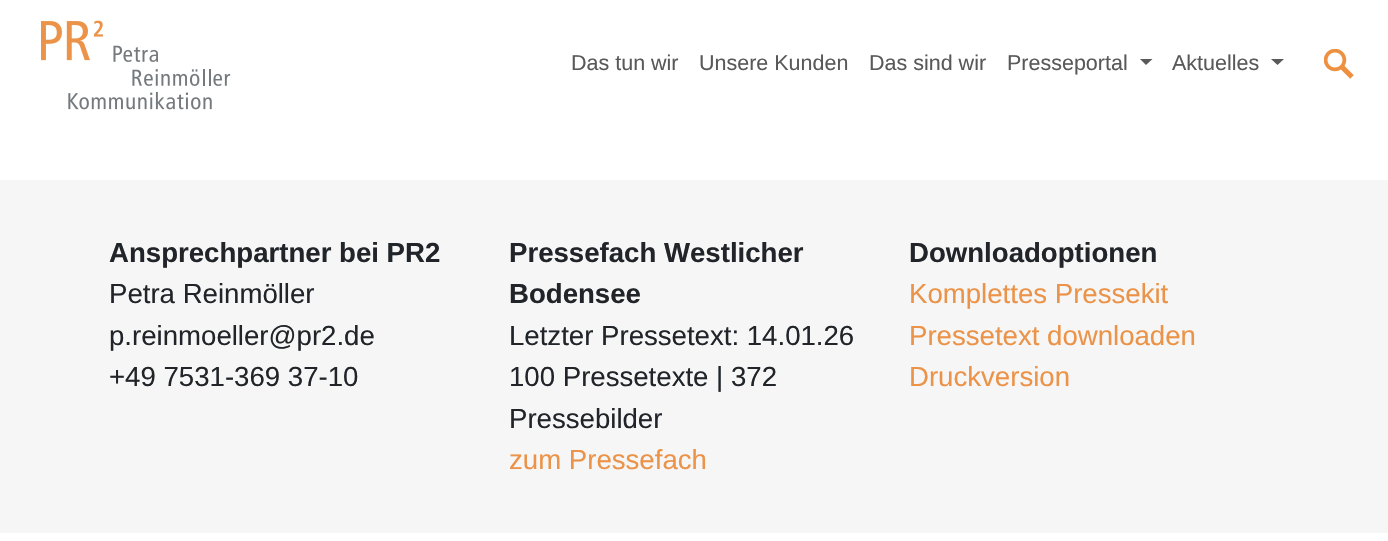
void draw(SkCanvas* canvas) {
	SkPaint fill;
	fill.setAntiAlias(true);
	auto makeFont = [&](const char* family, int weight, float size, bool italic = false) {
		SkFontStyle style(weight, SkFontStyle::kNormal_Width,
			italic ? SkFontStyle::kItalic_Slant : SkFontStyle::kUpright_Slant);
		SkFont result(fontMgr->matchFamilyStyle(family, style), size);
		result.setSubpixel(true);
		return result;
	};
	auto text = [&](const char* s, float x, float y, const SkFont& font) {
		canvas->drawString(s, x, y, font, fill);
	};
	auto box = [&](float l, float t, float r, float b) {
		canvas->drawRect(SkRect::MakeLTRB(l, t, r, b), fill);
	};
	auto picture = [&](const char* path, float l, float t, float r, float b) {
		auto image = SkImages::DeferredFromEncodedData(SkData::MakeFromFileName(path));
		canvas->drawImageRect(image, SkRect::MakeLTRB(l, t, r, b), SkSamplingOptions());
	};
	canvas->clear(0xFFFFFFFF);
	picture("image0.png", 41, 20, 231, 110);
	fill.setColor(0xFF595959);
	canvas->drawPath(SkPathBuilder().moveTo(1140, 59).lineTo(1152.5f, 59).lineTo(1146, 65).close().detach(), fill);
	canvas->drawPath(SkPathBuilder().moveTo(1271, 59).lineTo(1284, 59).lineTo(1277.5f, 65).close().detach(), fill);
	picture("image1.png", 1324, 49, 1354, 79);
	fill.setColor(0xFFF6F6F6);
	box(0, 180, 1388, 533);
	auto font1 = makeFont("Liberation Sans", 400, 21.5f);
	fill.setColor(0xFF595959);
	text("Das tun wir", 571, 70, font1);
	text("Unsere Kunden", 699, 70, font1);
	text("Das sind wir", 869, 70, font1);
	text("Presseportal", 1007, 70, font1);
	text("Aktuelles", 1172, 70, font1);
	auto font2 = makeFont("Liberation Sans", 700, 27.6f);
	fill.setColor(0xFF212529);
	text("Ansprechpartner bei PR2", 109, 262, font2);
	auto font3 = makeFont("Liberation Sans", 400, 27.6f);
	text("Petra Reinmöller", 109, 303, font3);
	text("p.reinmoeller@pr2.de", 109, 345, font3);
	text("+49 7531-369 37-10", 109, 386, font3);
	text("Pressefach Westlicher", 509, 262, font2);
	text("Bodensee", 509, 303, font2);
	text("Letzter Pressetext: 14.01.26", 509, 345, font3);
	text("100 Pressetexte | 372", 509, 386, font3);
	text("Pressebilder", 509, 428, font3);
	fill.setColor(0xFFEB9348);
	text("zum Pressefach", 509, 469, font3);
	fill.setColor(0xFF212529);
	text("Downloadoptionen", 909, 262, font2);
	fill.setColor(0xFFEB9348);
	text("Komplettes Pressekit", 909, 303, font3);
	text("Pressetext downloaden", 909, 345, font3);
	text("Druckversion", 909, 386, font3);
}
